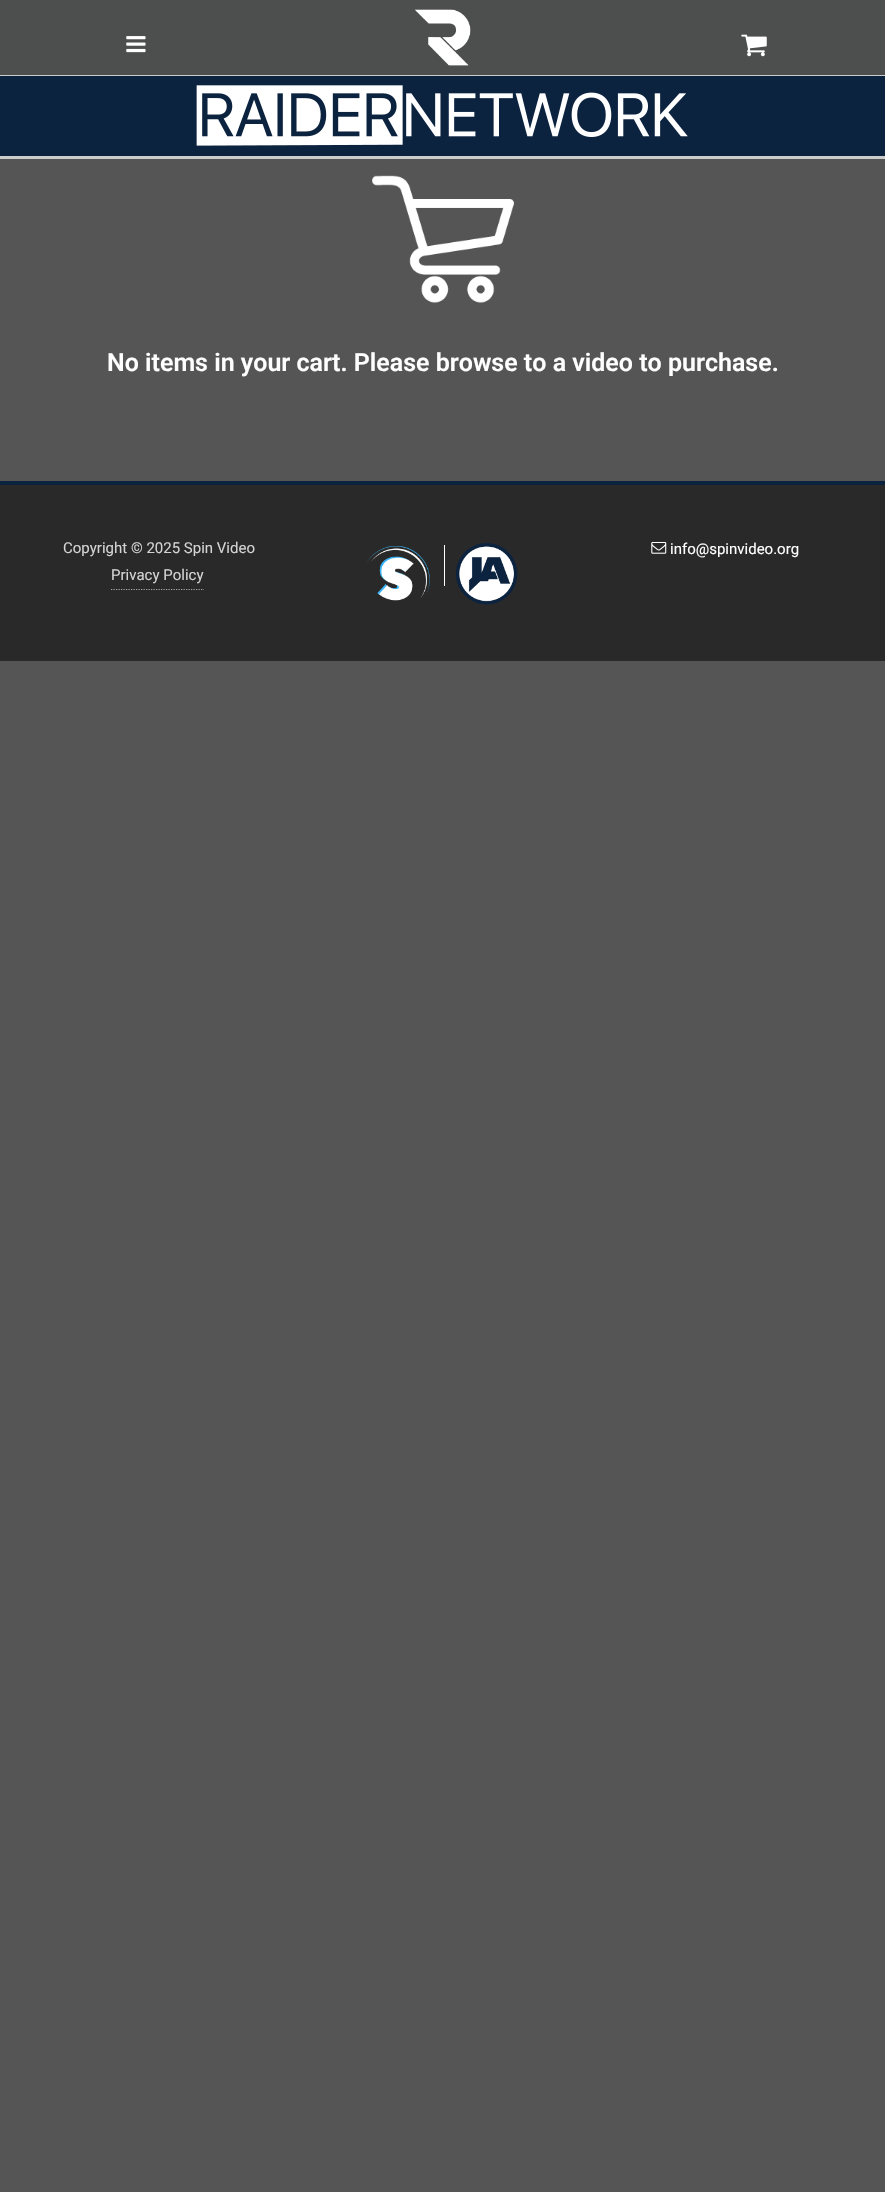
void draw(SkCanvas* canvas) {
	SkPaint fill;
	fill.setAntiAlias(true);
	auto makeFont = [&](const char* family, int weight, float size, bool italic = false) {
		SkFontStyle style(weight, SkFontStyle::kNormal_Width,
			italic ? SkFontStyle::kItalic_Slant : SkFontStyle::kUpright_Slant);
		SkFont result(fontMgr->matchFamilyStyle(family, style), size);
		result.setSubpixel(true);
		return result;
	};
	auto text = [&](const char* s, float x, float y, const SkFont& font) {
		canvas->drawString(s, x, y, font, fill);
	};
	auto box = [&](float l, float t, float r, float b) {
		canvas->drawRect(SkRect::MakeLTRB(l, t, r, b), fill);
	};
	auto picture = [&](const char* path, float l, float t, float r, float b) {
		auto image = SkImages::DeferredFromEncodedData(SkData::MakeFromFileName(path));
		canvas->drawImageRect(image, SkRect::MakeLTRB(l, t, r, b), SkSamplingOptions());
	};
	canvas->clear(0xFF555555);
	fill.setColor(0xFF4D4E4E);
	box(0, 0, 885, 75);
	fill.setColor(0xFFCCCCCC);
	box(0, 75, 885, 76);
	picture("image0.png", 126, 36, 146, 53);
	picture("image1.png", 414, 9, 471, 66);
	picture("image2.png", 741, 34, 767, 57);
	fill.setColor(0xFF0C2340);
	box(0, 76, 885, 156);
	fill.setColor(0xFFCCCCCC);
	box(0, 156, 885, 159);
	picture("image3.png", 196, 85, 688, 146);
	picture("image4.png", 372, 175, 514, 303);
	fill.setColor(0xFF0C2340);
	box(0, 481, 885, 485);
	fill.setColor(0xFF292929);
	box(0, 485, 885, 661);
	fill.setStyle(SkPaint::kStroke_Style);
	fill.setStrokeWidth(1.2f);
	fill.setColor(0xFFA9A9A9);
	fill.setPathEffect(SkDashPathEffect::Make({{1.25f, 1.25f}}, 0));
	canvas->drawPath(SkPathBuilder().moveTo(111, 589.5f).lineTo(204, 589.5f).detach(), fill);
	fill.setPathEffect(nullptr);
	picture("image5.png", 366, 546, 430, 601);
	fill.setStyle(SkPaint::kFill_Style);
	fill.setColor(0xFFFFFFFF);
	box(444, 545, 445, 586);
	picture("image6.png", 456, 543, 518, 605);
	picture("image7.png", 651, 542, 667, 554);
	auto font1 = makeFont("Roboto", 600, 25);
	text("No items in your cart. Please browse to a video to purchase.", 107, 371, font1);
	auto font2 = makeFont("Roboto", 400, 15);
	fill.setColor(0xFFD4D4D4);
	text("Copyright © 2025 Spin Video", 63, 553, font2);
	text("Privacy Policy", 111, 580, font2);
	fill.setColor(0xFFFFFFFF);
	text("info@spinvideo.org", 670, 554, font2);
}
